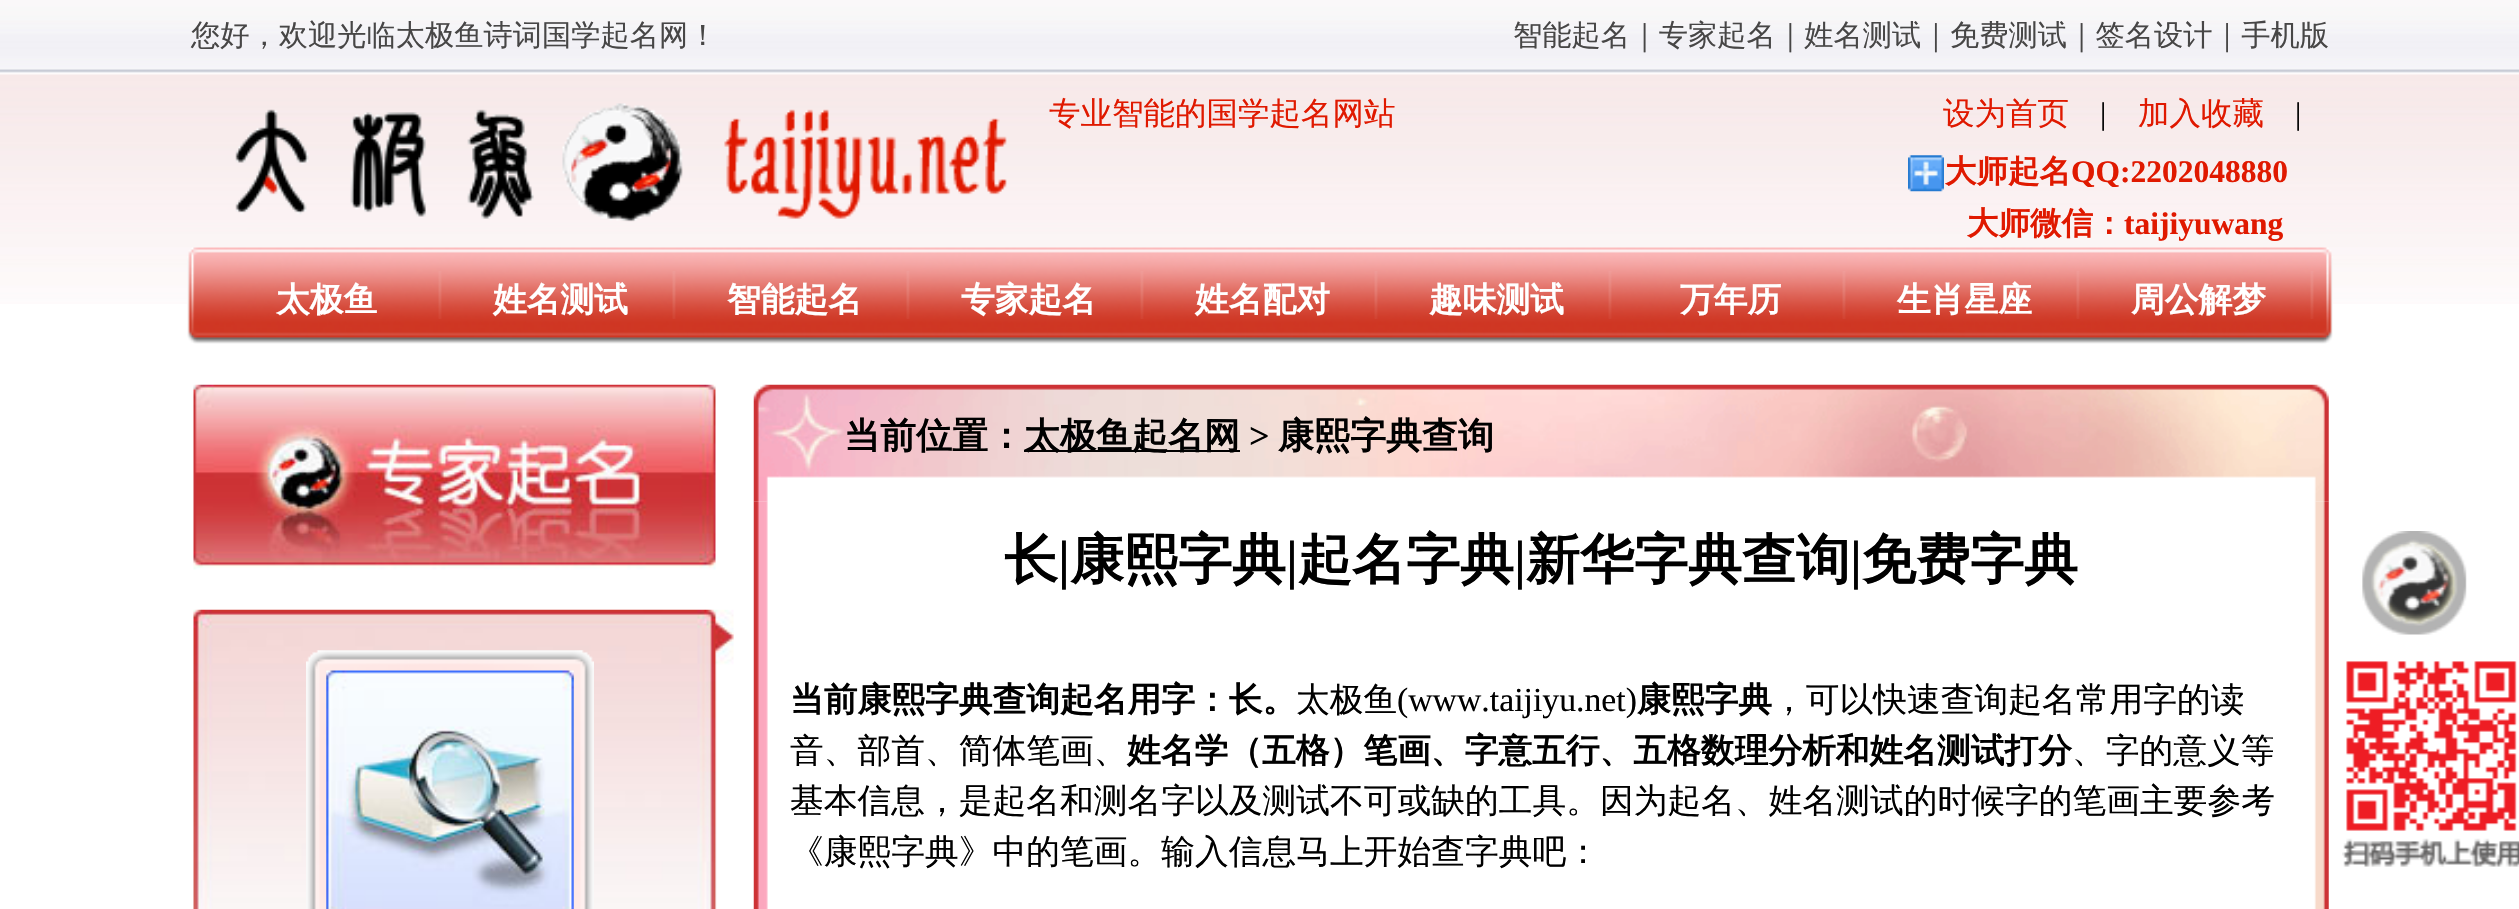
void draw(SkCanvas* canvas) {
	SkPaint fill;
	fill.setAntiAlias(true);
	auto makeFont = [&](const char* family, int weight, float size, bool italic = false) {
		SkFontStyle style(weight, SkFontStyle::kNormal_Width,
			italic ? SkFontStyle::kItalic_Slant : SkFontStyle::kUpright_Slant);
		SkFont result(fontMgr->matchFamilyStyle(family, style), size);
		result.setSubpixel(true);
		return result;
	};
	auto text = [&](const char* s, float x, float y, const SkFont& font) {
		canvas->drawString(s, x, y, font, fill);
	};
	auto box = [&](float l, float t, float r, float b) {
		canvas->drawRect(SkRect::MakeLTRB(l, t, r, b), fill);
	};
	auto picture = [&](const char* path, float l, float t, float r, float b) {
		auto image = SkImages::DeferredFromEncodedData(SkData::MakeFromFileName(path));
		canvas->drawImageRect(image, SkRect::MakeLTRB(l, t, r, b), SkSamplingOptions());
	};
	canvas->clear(0xFFFFFFFF);
	picture("image0.png", 0, 0, 2519, 72);
	picture("image1.png", 0, 72, 2519, 304);
	picture("image2.png", 235, 103, 1007, 222);
	picture("image3.png", 1908, 155, 1944, 192);
	picture("image4.png", 187, 247, 2333, 344);
	picture("image5.png", 438, 271, 442, 319);
	picture("image6.png", 672, 271, 676, 319);
	picture("image7.png", 906, 271, 910, 319);
	picture("image8.png", 1140, 271, 1144, 319);
	picture("image9.png", 1374, 271, 1378, 319);
	picture("image10.png", 1608, 271, 1612, 319);
	picture("image11.png", 1842, 271, 1846, 319);
	picture("image12.png", 2076, 271, 2080, 319);
	picture("image13.png", 2310, 271, 2314, 319);
	picture("image14.png", 193, 384, 716, 570);
	picture("image15.png", 193, 609, 734, 909);
	picture("image16.png", 306, 650, 594, 909);
	picture("image17.png", 326, 670, 574, 909);
	picture("image18.png", 753, 384, 2329, 502);
	fill.setColor(0xFF000000);
	box(1024, 450, 1240, 452);
	picture("image19.png", 753, 501, 2329, 909);
	picture("image20.png", 2362, 531, 2467, 635);
	picture("image21.png", 2342, 661, 2519, 867);
	auto font1 = makeFont("WenQuanYi Zen Hei", 500, 29.25f);
	fill.setColor(0xFF474646);
	text("您好，欢迎光临太极鱼诗词国学起名网！", 191, 45, font1);
	text("智能起名｜专家起名｜姓名测试｜免费测试｜签名设计｜手机版", 1513, 45, font1);
	auto font2 = makeFont("WenQuanYi Zen Hei", 500, 31.5f);
	fill.setColor(0xFFE01900);
	text("专业智能的国学起名网站", 1049, 124, font2);
	text("设为首页", 1943, 124, font2);
	auto font3 = makeFont("Liberation Serif", 400, 31.5f);
	fill.setColor(0xFF000000);
	text("|", 2100, 124, font3);
	fill.setColor(0xFFE01900);
	text("加入收藏", 2138, 124, font2);
	fill.setColor(0xFF000000);
	text("|", 2295, 124, font3);
	auto font4 = makeFont("WenQuanYi Zen Hei", 700, 31.5f);
	fill.setColor(0xFFE01900);
	text("大师起名", 1945, 182, font4);
	auto font5 = makeFont("Liberation Serif", 700, 31.5f);
	text("QQ:2202048880", 2071, 182, font5);
	text("大师微信：", 1967, 234, font4);
	text("taijiyuwang", 2124, 234, font5);
	auto font6 = makeFont("WenQuanYi Zen Hei", 700, 33.75f);
	fill.setColor(0xFFFFFFFF);
	text("太极鱼", 276, 311, font6);
	text("姓名测试", 493, 311, font6);
	text("智能起名", 727, 311, font6);
	text("专家起名", 961, 311, font6);
	text("姓名配对", 1195, 311, font6);
	text("趣味测试", 1429, 311, font6);
	text("万年历", 1680, 311, font6);
	text("生肖星座", 1897, 311, font6);
	text("周公解梦", 2131, 311, font6);
	auto font7 = makeFont("WenQuanYi Zen Hei", 700, 36);
	fill.setColor(0xFF000000);
	text("当前位置：", 844, 448, font7);
	text("太极鱼起名网", 1024, 448, font7);
	auto font8 = makeFont("Liberation Serif", 700, 36);
	text(">", 1249, 448, font8);
	text("康熙字典查询", 1278, 448, font7);
	auto font9 = makeFont("WenQuanYi Zen Hei", 700, 54);
	text("长", 1004, 578, font9);
	auto font10 = makeFont("Liberation Serif", 700, 54);
	text("|", 1058, 578, font10);
	text("康熙字典", 1070, 578, font9);
	text("|", 1286, 578, font10);
	text("起名字典", 1298, 578, font9);
	text("|", 1514, 578, font10);
	text("新华字典查询", 1526, 578, font9);
	text("|", 1850, 578, font10);
	text("免费字典", 1862, 578, font9);
	text("当前康熙字典查询起名用字：长。", 790, 711, font6);
	auto font11 = makeFont("WenQuanYi Zen Hei", 500, 33.75f);
	text("太极鱼", 1296, 711, font11);
	auto font12 = makeFont("Liberation Serif", 400, 33.75f);
	text("(www.taijiyu.net)", 1397, 711, font12);
	text("康熙字典", 1637, 711, font6);
	text("，可以快速查询起名常用字的读", 1772, 711, font11);
	text("音、部首、简体笔画、", 790, 762, font11);
	text("姓名学（五格）笔画、字意五行、五格数理分析和姓名测试打分", 1127, 762, font6);
	text("、字的意义等", 2072, 762, font11);
	text("基本信息，是起名和测名字以及测试不可或缺的工具。因为起名、姓名测试的时候字的笔画主要参考", 790, 812, font11);
	text("《康熙字典》中的笔画。输入信息马上开始查字典吧：", 790, 863, font11);
}
